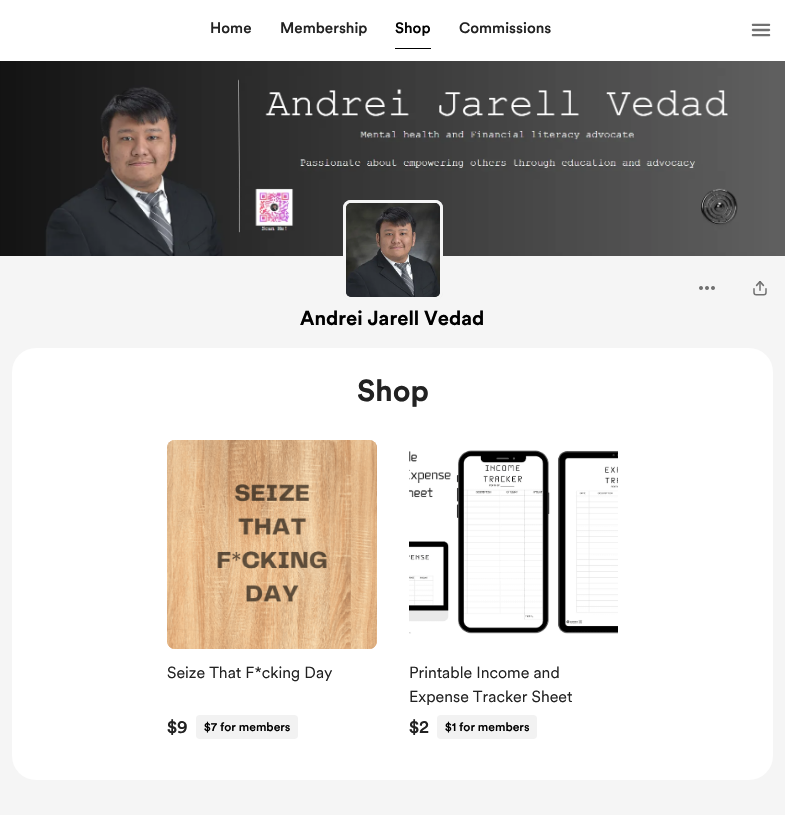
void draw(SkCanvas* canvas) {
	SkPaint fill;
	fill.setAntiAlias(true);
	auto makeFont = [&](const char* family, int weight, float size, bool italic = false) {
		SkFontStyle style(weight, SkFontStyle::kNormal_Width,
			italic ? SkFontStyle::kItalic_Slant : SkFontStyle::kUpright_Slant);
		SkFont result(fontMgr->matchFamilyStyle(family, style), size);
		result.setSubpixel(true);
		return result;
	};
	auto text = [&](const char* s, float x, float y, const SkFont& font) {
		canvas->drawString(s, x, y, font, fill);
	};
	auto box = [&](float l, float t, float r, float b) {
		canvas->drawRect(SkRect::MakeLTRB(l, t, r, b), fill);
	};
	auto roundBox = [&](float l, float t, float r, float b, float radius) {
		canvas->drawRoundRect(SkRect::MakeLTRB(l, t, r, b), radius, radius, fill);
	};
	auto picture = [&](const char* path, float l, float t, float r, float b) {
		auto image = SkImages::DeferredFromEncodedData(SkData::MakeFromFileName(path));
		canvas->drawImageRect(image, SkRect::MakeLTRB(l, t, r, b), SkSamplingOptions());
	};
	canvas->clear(0xFFFFFFFF);
	fill.setColor(0xFF000000);
	box(395, 48, 431, 49);
	picture("image0.png", 751, 23, 771, 37);
	fill.setColor(0xFFF5F5F5);
	box(0, 256, 785, 815);
	picture("image1.png", 0, 61, 785, 256);
	picture("image2.png", 699, 286, 715, 290);
	picture("image3.png", 753, 281, 767, 296);
	picture("image4.png", 343, 200, 443, 300);
	fill.setStyle(SkPaint::kStroke_Style);
	fill.setStrokeWidth(3);
	canvas->drawRoundRect(SkRect::MakeLTRB(344.5f, 201.5f, 441.5f, 298.5f), 6.5f, 6.5f, fill);
	picture("image5.png", 346, 203, 440, 297);
	fill.setStyle(SkPaint::kFill_Style);
	fill.setColor(0xFFFFFFFF);
	roundBox(12, 348, 773, 780, 24);
	picture("image6.png", 167, 440, 377, 649);
	picture("image7.png", 167, 440, 377, 649);
	fill.setColor(0xFFF2F2F2);
	roundBox(196, 715, 298, 739, 4);
	picture("image8.png", 409, 450, 618, 634);
	roundBox(437, 715, 537, 739, 4);
	auto font1 = makeFont("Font", 500, 15);
	fill.setColor(0xFF222222);
	text("Home", 210, 33, font1);
	text("Membership", 280, 33, font1);
	fill.setColor(0xFF000000);
	text("Shop", 395, 33, font1);
	fill.setColor(0xFF222222);
	text("Commissions", 459, 33, font1);
	auto font2 = makeFont("Font", 700, 20);
	fill.setColor(0xFF000000);
	text("Andrei Jarell Vedad", 300, 325, font2);
	auto font3 = makeFont("Font", 700, 30);
	fill.setColor(0xFF222222);
	text("Shop", 357, 401, font3);
	auto font4 = makeFont("Font", 400, 16);
	text("Seize That F*cking Day", 167, 678, font4);
	auto font5 = makeFont("Font", 500, 18);
	text("$9", 167, 733, font5);
	auto font6 = makeFont("Font", 500, 12);
	fill.setColor(0xFF000000);
	text("$7 for members", 204, 731, font6);
	fill.setColor(0xFF222222);
	text("Printable Income and", 409, 678, font4);
	text("Expense Tracker Sheet", 409, 702, font4);
	text("$2", 409, 733, font5);
	fill.setColor(0xFF000000);
	text("$1 for members", 445, 731, font6);
}
